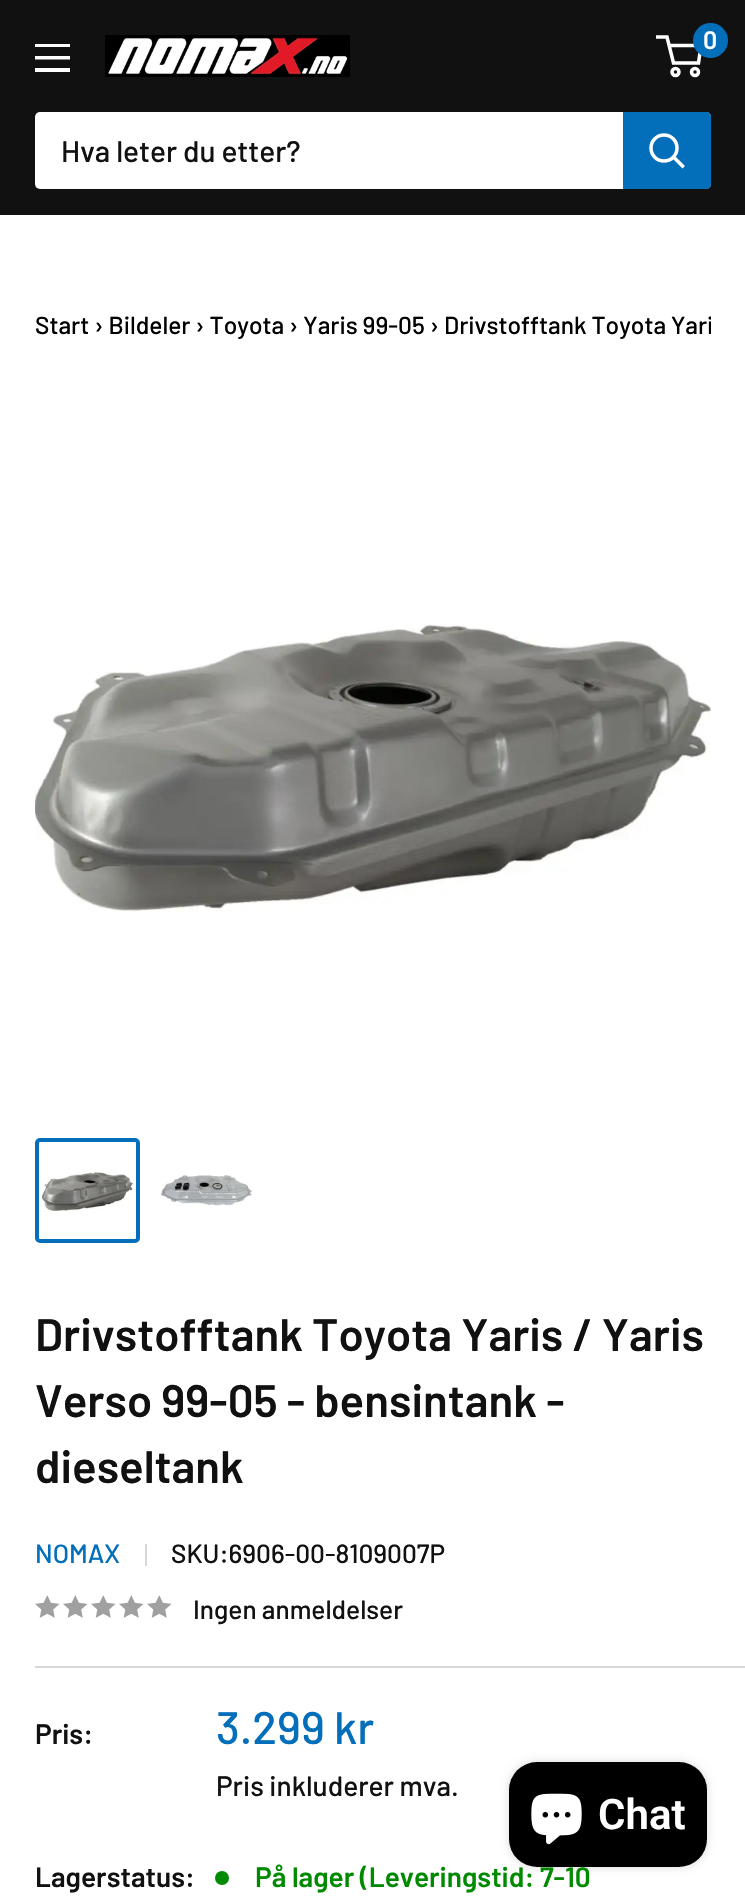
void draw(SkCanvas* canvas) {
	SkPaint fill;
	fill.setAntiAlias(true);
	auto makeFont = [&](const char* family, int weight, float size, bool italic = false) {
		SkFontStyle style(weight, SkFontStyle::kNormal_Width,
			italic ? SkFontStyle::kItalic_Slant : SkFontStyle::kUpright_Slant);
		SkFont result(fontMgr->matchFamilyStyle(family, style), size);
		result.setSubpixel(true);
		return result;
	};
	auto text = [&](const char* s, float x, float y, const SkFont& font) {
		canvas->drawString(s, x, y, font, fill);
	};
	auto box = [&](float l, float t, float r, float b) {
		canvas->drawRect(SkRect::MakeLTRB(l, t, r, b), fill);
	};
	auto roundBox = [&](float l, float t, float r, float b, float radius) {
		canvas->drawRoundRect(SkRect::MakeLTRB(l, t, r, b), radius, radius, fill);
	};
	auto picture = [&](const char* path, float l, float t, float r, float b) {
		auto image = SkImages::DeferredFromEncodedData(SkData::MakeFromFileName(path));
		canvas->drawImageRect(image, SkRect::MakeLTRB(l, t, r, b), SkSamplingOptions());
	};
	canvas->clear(0xFFFFFFFF);
	fill.setColor(0xFF111111);
	box(0, 0, 745, 215);
	fill.setColor(0xFFFFFFFF);
	canvas->drawPath(SkPathBuilder(SkPathFillType::kEvenOdd).moveTo(35, 68).lineTo(70, 68).lineTo(70, 72).lineTo(35, 72).close().moveTo(35, 44).lineTo(70, 44).lineTo(70, 47).lineTo(35, 47).close().moveTo(35, 56).lineTo(70, 56).lineTo(70, 59.5f).lineTo(35, 59.5f).close().detach(), fill);
	picture("image0.png", 105, 35, 350, 77);
	fill.setStyle(SkPaint::kStroke_Style);
	fill.setStrokeWidth(3.5f);
	canvas->drawCircle(675.5f, 72, 3.5f, fill);
	canvas->drawCircle(695, 72, 3.5f, fill);
	canvas->drawPath(SkPathBuilder().moveTo(669, 45.5f).lineTo(701, 45.5f).lineTo(698.5f, 63).lineTo(673.5f, 63).lineTo(667, 37).lineTo(656, 37).detach(), fill);
	fill.setStyle(SkPaint::kFill_Style);
	fill.setColor(0xFF036EB9);
	canvas->drawCircle(710.5f, 40.5f, 17.5f, fill);
	fill.setColor(0xFFFFFFFF);
	roundBox(35, 112, 711, 189, 5);
	fill.setColor(0xFF036EB9);
	canvas->drawPath(SkPathBuilder().moveTo(623, 112).lineTo(706, 112).cubicTo(709, 112, 711, 114, 711, 117).lineTo(711, 184).cubicTo(711, 187, 709, 189, 706, 189).lineTo(623, 189).close().detach(), fill);
	fill.setStyle(SkPaint::kStroke_Style);
	fill.setStrokeCap(SkPaint::kSquare_Cap);
	fill.setColor(0xFFFFFFFF);
	canvas->drawPath(SkPathBuilder().moveTo(682.5f, 166).lineTo(674, 157.5f).detach(), fill);
	fill.setStrokeCap(SkPaint::kButt_Cap);
	canvas->drawCircle(664, 148, 13, fill);
	picture("image1.png", 35, 624, 711, 913);
	fill.setStrokeWidth(4);
	fill.setColor(0xFF036EB9);
	canvas->drawRoundRect(SkRect::MakeLTRB(37, 1140, 138, 1241), 3, 3, fill);
	picture("image2.png", 42, 1172, 133, 1212);
	picture("image3.png", 161, 1175, 252, 1206);
	fill.setStyle(SkPaint::kFill_Style);
	fill.setColor(0xFFD7D7D7);
	box(145, 1544, 147, 1566);
	picture("image4.png", 35, 1595, 60, 1618);
	picture("image4.png", 63, 1595, 88, 1618);
	picture("image4.png", 91, 1595, 116, 1618);
	picture("image4.png", 119, 1595, 144, 1618);
	picture("image4.png", 147, 1595, 172, 1618);
	box(35, 1666, 745, 1668);
	fill.setColor(0xFF008A00);
	canvas->drawCircle(222, 1878, 7, fill);
	fill.setColor(0x26000000);
	fill.setMaskFilter(SkMaskFilter::MakeBlur(kNormal_SkBlurStyle, 4.5f));
	canvas->drawRoundRect(SkRect::MakeLTRB(509, 1762, 707, 1867), 28, 28, fill);
	fill.setMaskFilter(nullptr);
	auto font1 = makeFont("Barlow", 600, 25);
	fill.setColor(0xFFFFFFFF);
	text("0", 703, 49, font1);
	auto font2 = makeFont("Barlow", 500, 29.75f);
	fill.setColor(0xFF111111);
	text("Hva leter du etter?", 61, 162, font2);
	auto font3 = makeFont("Barlow", 500, 24.5f);
	fill.setColor(0xFF000000);
	text("Start › Bildeler › Toyota › Yaris 99-05 ›", 35, 334, font3);
	canvas->save();
	canvas->clipRect(SkRect::MakeLTRB(35, 303, 711, 348));
	text("Drivstofftank Toyota Yari", 444, 334, font3);
	canvas->restore();
	auto font4 = makeFont("Barlow", 600, 45.5f);
	fill.setColor(0xFF111111);
	text("Drivstofftank Toyota Yaris / Yaris", 35, 1351, font4);
	text("Verso 99-05 - bensintank -", 35, 1417, font4);
	text("dieseltank", 35, 1483, font4);
	auto font5 = makeFont("Barlow", 500, 26.25f);
	fill.setColor(0xFF036EB9);
	text("NOMAX", 35, 1563, font5);
	fill.setColor(0xFF111111);
	text("SKU:6906-00-8109007P", 171, 1563, font5);
	text("Ingen anmeldelser", 193, 1619, font5);
	auto font6 = makeFont("Barlow", 600, 28);
	text("Pris:", 35, 1744, font6);
	auto font7 = makeFont("Barlow", 500, 45.5f);
	fill.setColor(0xFF036EB9);
	text("3.299 kr", 216, 1744, font7);
	auto font8 = makeFont("Barlow", 500, 28);
	fill.setColor(0xFF111111);
	text("Pris inkluderer mva.", 216, 1796, font8);
	text("Lagerstatus:", 35, 1887, font6);
	fill.setColor(0xFF008A00);
	text("På lager (Leveringstid: 7-10", 255, 1887, font6);
	fill.setColor(0xFF000000);
	roundBox(509, 1762, 707, 1867, 28);
	picture("image5.png", 531, 1793, 582, 1845);
	auto font9 = makeFont("Roboto", 600, 42);
	fill.setColor(0xFFFFFFFF);
	text("Chat", 598, 1829, font9);
}
